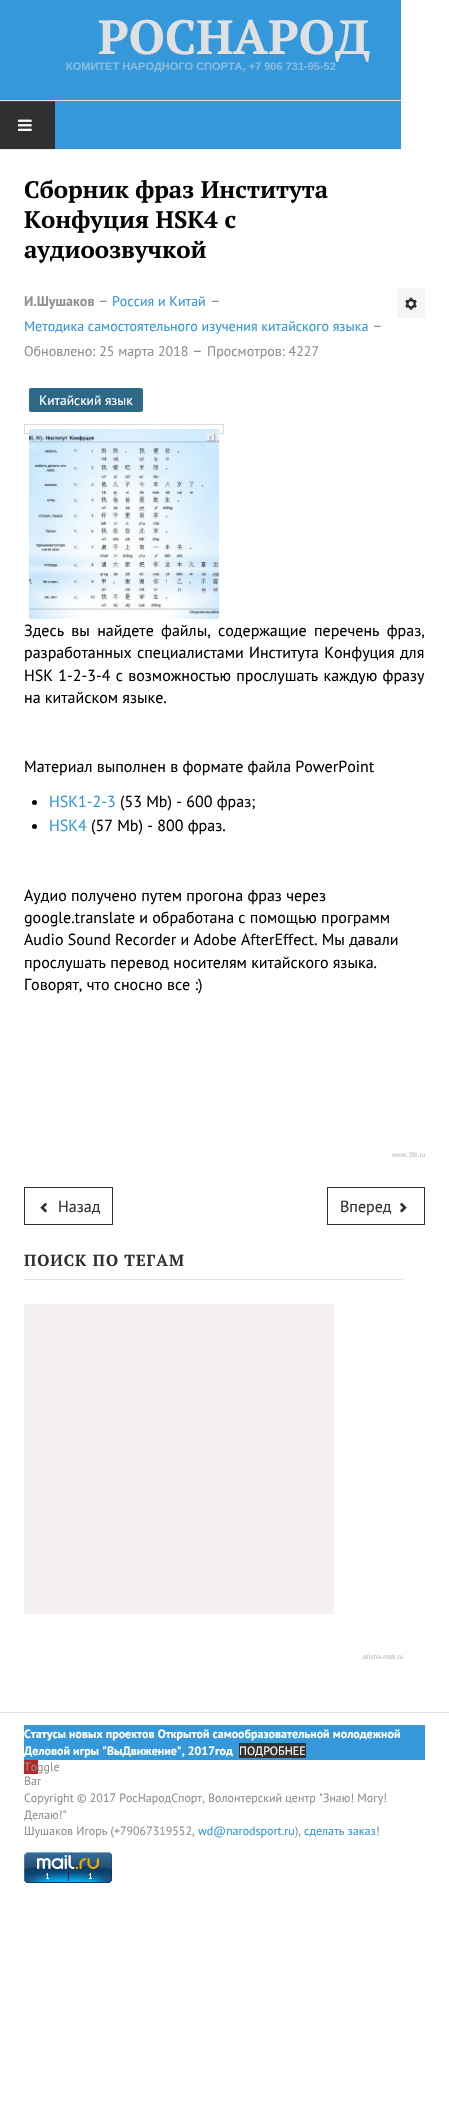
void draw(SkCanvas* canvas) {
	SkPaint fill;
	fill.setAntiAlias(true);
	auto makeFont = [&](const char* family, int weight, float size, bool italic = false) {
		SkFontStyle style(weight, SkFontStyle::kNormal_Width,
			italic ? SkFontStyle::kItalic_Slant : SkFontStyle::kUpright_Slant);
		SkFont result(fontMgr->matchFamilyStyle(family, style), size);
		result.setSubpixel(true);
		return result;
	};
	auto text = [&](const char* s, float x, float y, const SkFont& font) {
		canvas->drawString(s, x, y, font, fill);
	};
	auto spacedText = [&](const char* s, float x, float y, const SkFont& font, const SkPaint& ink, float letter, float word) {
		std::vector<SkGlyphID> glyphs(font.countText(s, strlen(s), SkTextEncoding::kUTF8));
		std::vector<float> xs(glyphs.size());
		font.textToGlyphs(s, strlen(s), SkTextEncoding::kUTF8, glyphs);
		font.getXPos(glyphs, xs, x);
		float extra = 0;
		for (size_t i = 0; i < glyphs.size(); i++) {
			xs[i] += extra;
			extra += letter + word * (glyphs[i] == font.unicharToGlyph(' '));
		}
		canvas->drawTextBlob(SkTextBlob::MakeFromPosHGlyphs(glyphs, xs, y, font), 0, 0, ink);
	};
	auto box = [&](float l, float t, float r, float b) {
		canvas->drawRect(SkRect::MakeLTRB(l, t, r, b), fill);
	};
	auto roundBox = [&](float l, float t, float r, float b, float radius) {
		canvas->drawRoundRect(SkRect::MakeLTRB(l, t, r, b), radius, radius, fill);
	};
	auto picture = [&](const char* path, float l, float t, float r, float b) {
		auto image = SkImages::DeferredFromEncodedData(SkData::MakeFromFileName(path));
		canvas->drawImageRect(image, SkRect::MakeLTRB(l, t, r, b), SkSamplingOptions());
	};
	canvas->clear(0xFFFFFFFF);
	fill.setColor(0xFF3498DB);
	box(0, 0, 401, 100);
	fill.setColor(0xFFE0E0E0);
	box(0, 100, 401, 101);
	fill.setColor(0xFF3498DB);
	box(55, 101, 401, 149);
	fill.setColor(0xFFEEEEEE);
	box(0, 149, 401, 150);
	fill.setColor(0xFF303030);
	box(0, 102, 55, 149);
	fill.setColor(0xFF454545);
	box(0, 101, 55, 102);
	picture("image0.png", 18, 119, 32, 131);
	fill.setColor(0xFFF5F5F5);
	box(397, 288, 425, 318);
	picture("image1.png", 405, 297, 417, 310);
	fill.setColor(0xFF2D6987);
	roundBox(29, 388, 143, 412, 2);
	fill.setStyle(SkPaint::kStroke_Style);
	fill.setStrokeWidth(1);
	fill.setColor(0xFFDDDDDD);
	canvas->drawRect(SkRect::MakeLTRB(24.5f, 424.5f, 223.5f, 433.5f), fill);
	picture("image2.png", 29, 429, 219, 619);
	fill.setStyle(SkPaint::kFill_Style);
	fill.setColor(0xFF050505);
	canvas->drawCircle(34.5f, 802.5f, 2.5f, fill);
	canvas->drawCircle(34.5f, 826.5f, 2.5f, fill);
	fill.setStyle(SkPaint::kStroke_Style);
	fill.setColor(0xFF303030);
	canvas->drawRect(SkRect::MakeLTRB(24.5f, 1187.5f, 112.5f, 1224.5f), fill);
	picture("image3.png", 40, 1202, 47, 1213);
	canvas->drawRect(SkRect::MakeLTRB(327.5f, 1187.5f, 424.5f, 1224.5f), fill);
	picture("image4.png", 400, 1202, 407, 1213);
	fill.setStyle(SkPaint::kFill_Style);
	fill.setColor(0xFFE0E0E0);
	box(24, 1279, 403, 1280);
	fill.setColor(0xFFF5F0F0);
	box(24, 1304, 334, 1614);
	fill.setColor(0xFFE0E0E0);
	box(0, 1712, 449, 1713);
	fill.setColor(0xFF3498DB);
	box(24, 1725, 425, 1760);
	fill.setColor(0xFF333333);
	box(239, 1743, 306, 1758);
	fill.setColor(0xFFB82828);
	box(24, 1760, 38, 1774);
	picture("image5.png", 24, 1852, 112, 1883);
	auto font1 = makeFont("PT Serif", 700, 48);
	fill.setColor(0xFFE0E0E0);
	text("РОСНАРОД", 98, 54, font1);
	auto font2 = makeFont("Liberation Sans", 700, 11);
	fill.setColor(0xFF8ABCDE);
	text("КОМИТЕТ НАРОДНОГО СПОРТА, +7 906 731-95-52", 66, 70, font2);
	auto font3 = makeFont("PT Serif", 700, 24);
	fill.setColor(0xFF050505);
	text("Сборник фраз Института", 24, 198, font3);
	text("Конфуция HSK4 с", 24, 228, font3);
	text("аудиоозвучкой", 24, 258, font3);
	auto font4 = makeFont("PT Sans", 700, 14);
	fill.setColor(0xFF909090);
	text("И.Шушаков", 24, 306, font4);
	auto font5 = makeFont("PT Sans", 400, 16);
	text("–", 98, 306, font5);
	auto font6 = makeFont("PT Sans", 400, 14);
	fill.setColor(0xFF3498DB);
	text("Россия и Китай", 112, 306, font6);
	fill.setColor(0xFF909090);
	text("–", 210, 306, font5);
	fill.setColor(0xFF3498DB);
	text("Методика самостоятельного изучения китайского языка", 24, 331, font6);
	fill.setColor(0xFF909090);
	text("–", 372, 331, font5);
	text("Обновлено: 25 марта 2018", 24, 356, font6);
	text("–", 192, 356, font5);
	text("Просмотров: 4227", 207, 356, font6);
	auto font7 = makeFont("PT Sans", 400, 13.5f);
	fill.setColor(0xFFFFFFFF);
	text("Китайский язык", 39, 405, font7);
	fill.setColor(0xFF050505);
	spacedText("Здесь вы найдете файлы, содержащие перечень фраз,", 24, 636, font5, fill, 0, 3);
	spacedText("разработанных специалистами Института Конфуция для", 24, 658, font5, fill, 0, 1);
	spacedText("HSK 1-2-3-4 с возможностью прослушать каждую фразу", 24, 681, font5, fill, 0, 1);
	text("на китайском языке.", 24, 703, font5);
	text("Материал выполнен в формате файла PowerPoint", 24, 772, font5);
	fill.setColor(0xFF3498DB);
	text("HSK1-2-3", 49, 807, font5);
	fill.setColor(0xFF050505);
	text("(53 Mb) - 600 фраз;", 120, 807, font5);
	fill.setColor(0xFF3498DB);
	text("HSK4", 49, 831, font5);
	fill.setColor(0xFF050505);
	text("(57 Mb) - 800 фраз.", 91, 831, font5);
	text("Аудио получено путем прогона фраз через", 24, 901, font5);
	text("google.translate и обработана с помощью программ", 24, 923, font5);
	text("Audio Sound Recorder и Adobe AfterEffect. Мы давали", 24, 945, font5);
	text("прослушать перевод носителям китайского языка.", 24, 968, font5);
	text("Говорят, что сносно все :)", 24, 990, font5);
	auto font8 = makeFont("Liberation Sans", 400, 6.75f);
	fill.setColor(0xFFC0C0C0);
	text("www.38i.ru", 392, 1157, font8);
	fill.setColor(0xFF303030);
	text("Назад", 58, 1212, font5);
	text("Вперед", 340, 1212, font5);
	auto font9 = makeFont("PT Serif", 700, 16);
	spacedText("ПОИСК ПО ТЕГАМ", 24, 1266, font9, fill, 1, 0);
	fill.setColor(0xFFC0C0C0);
	text("afisha-msk.ru", 363, 1659, font8);
	auto font10 = makeFont("PT Sans", 700, 12);
	fill.setColor(0xFFFFFFFF);
	text("Статусы новых проектов Открытой самообразовательной молодежной", 24, 1738, font10);
	text("Деловой игры \"ВыДвижение\", 2017год", 24, 1755, font10);
	auto font11 = makeFont("PT Sans", 400, 12);
	text("ПОДРОБНЕЕ", 239, 1755, font11);
	fill.setColor(0xFF909090);
	text("Toggle", 24, 1771, font11);
	text("Bar", 24, 1785, font11);
	text("Copyright © 2017 РосНародСпорт, Волонтерский центр \"Знаю! Могу!", 24, 1802, font11);
	text("Делаю!\"", 24, 1819, font11);
	text("Шушаков Игорь (+79067319552,", 24, 1835, font11);
	fill.setColor(0xFF3498DB);
	text("wd@narodsport.ru", 198, 1835, font11);
	fill.setColor(0xFF909090);
	text("),", 295, 1835, font11);
	fill.setColor(0xFF3498DB);
	text("сделать заказ", 304, 1835, font11);
	fill.setColor(0xFF909090);
	text("!", 376, 1835, font11);
}
